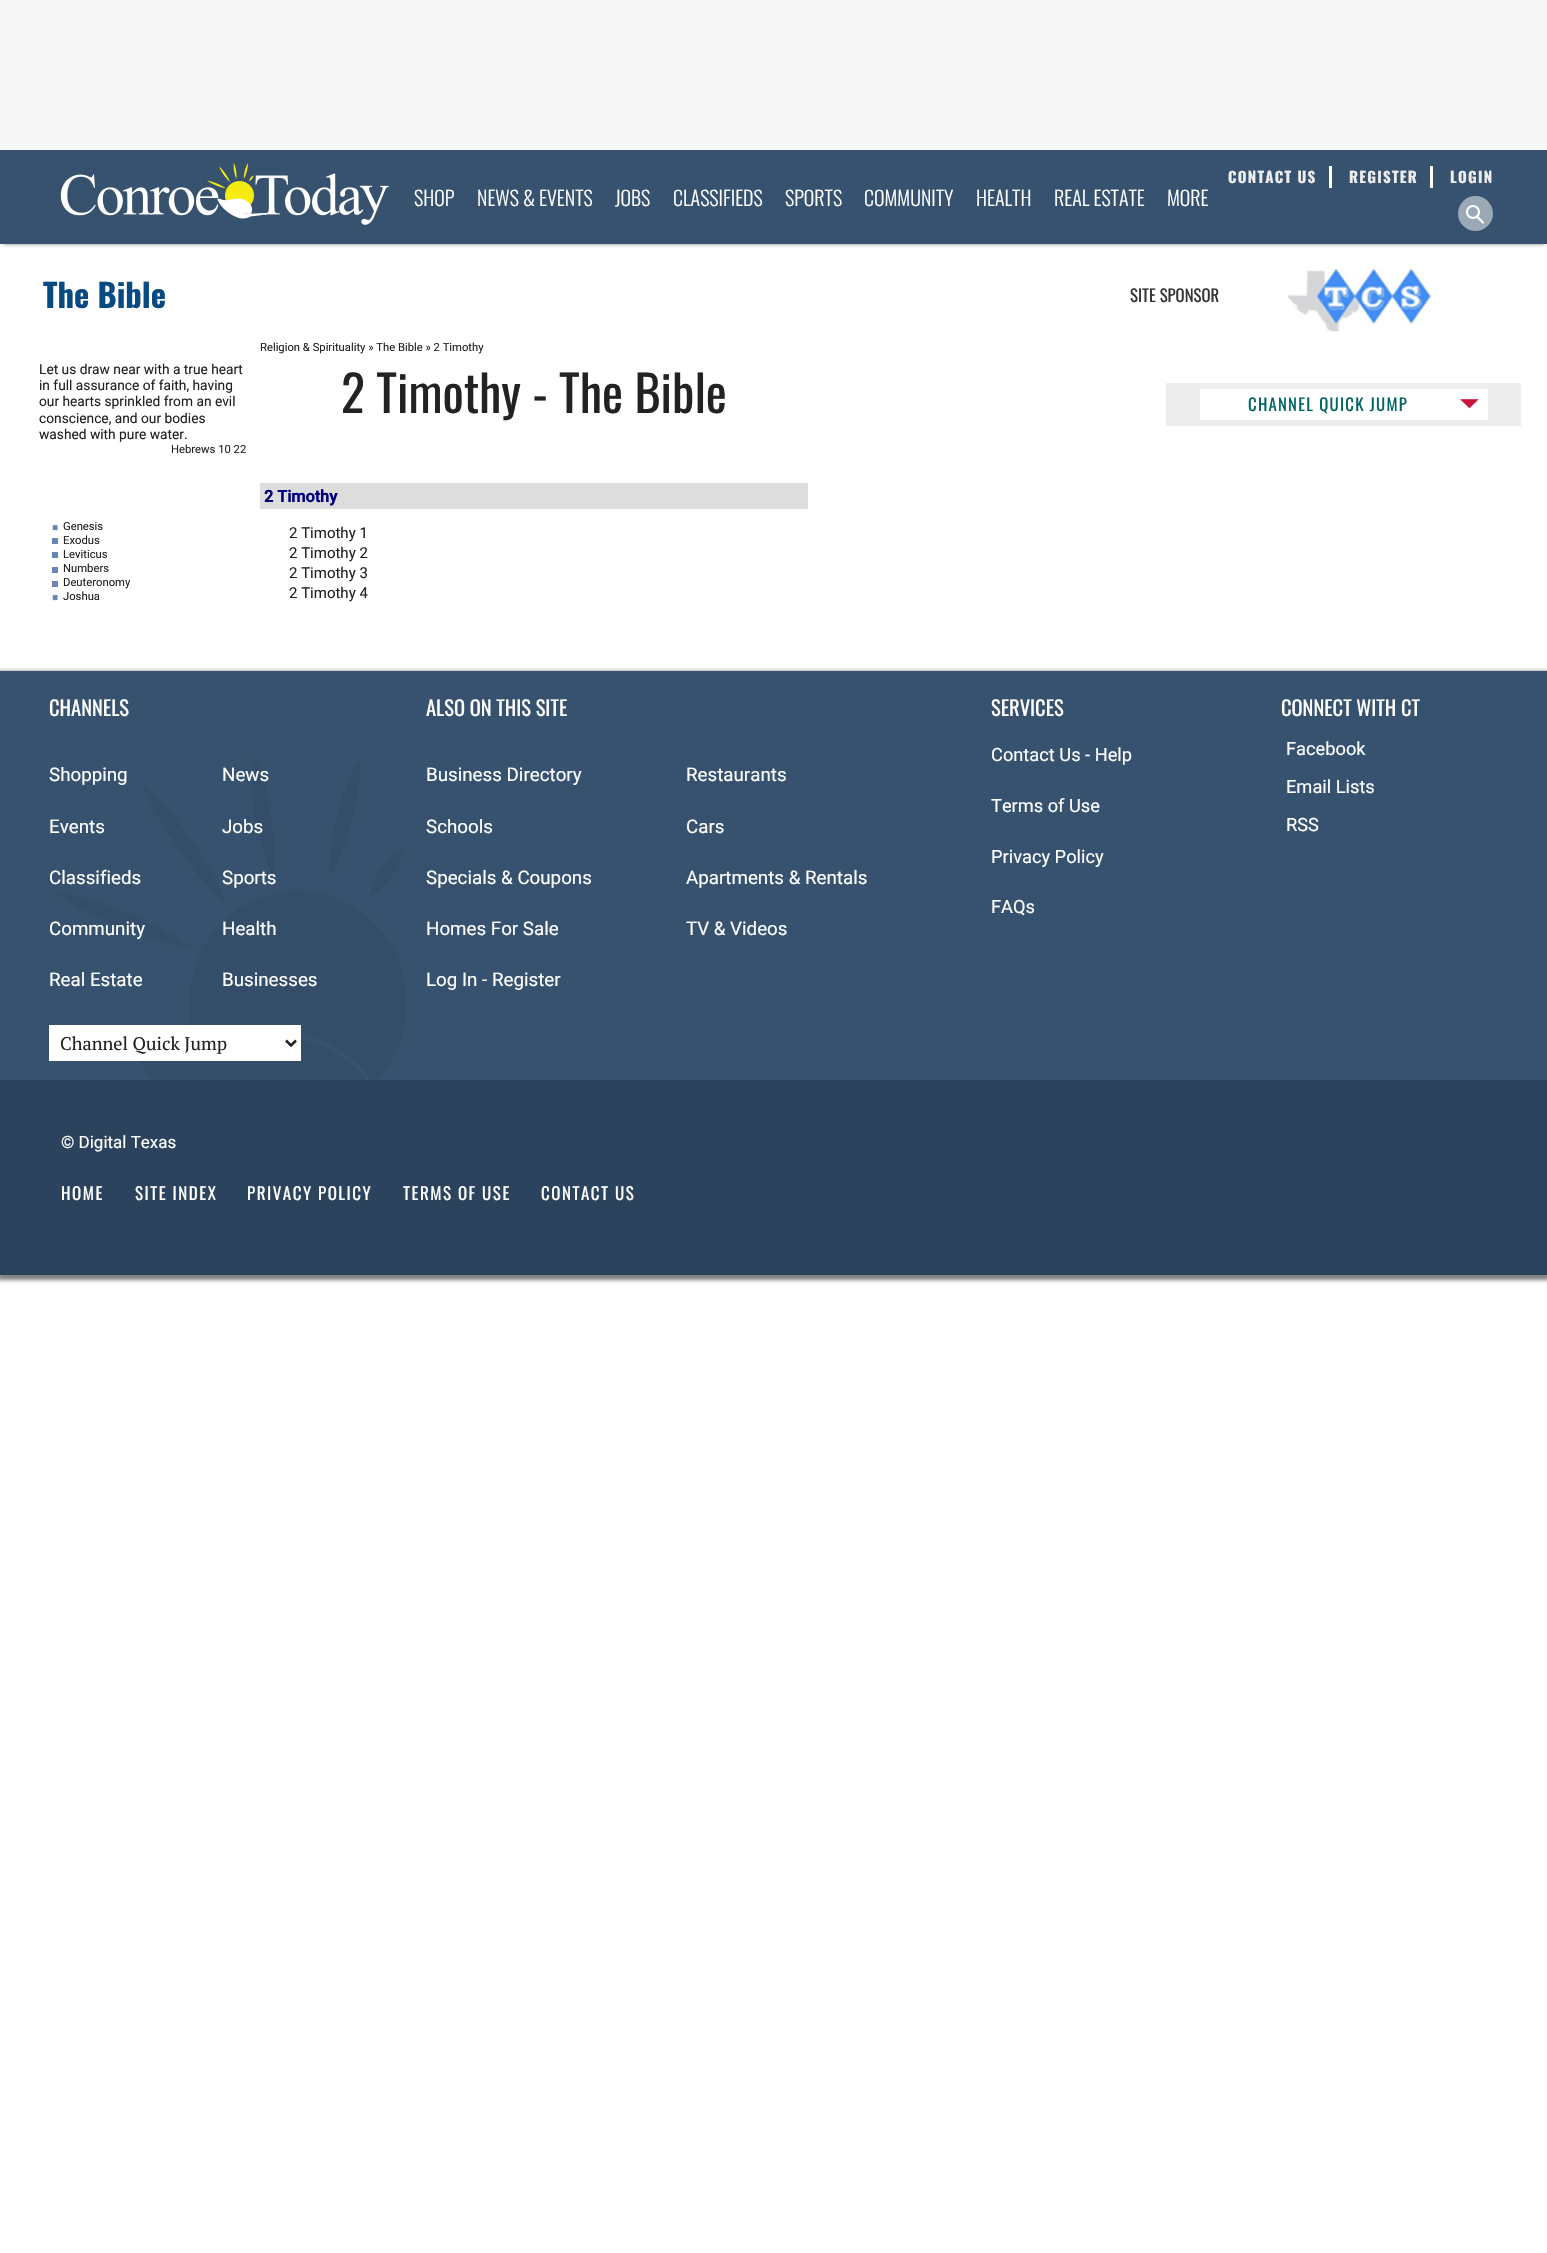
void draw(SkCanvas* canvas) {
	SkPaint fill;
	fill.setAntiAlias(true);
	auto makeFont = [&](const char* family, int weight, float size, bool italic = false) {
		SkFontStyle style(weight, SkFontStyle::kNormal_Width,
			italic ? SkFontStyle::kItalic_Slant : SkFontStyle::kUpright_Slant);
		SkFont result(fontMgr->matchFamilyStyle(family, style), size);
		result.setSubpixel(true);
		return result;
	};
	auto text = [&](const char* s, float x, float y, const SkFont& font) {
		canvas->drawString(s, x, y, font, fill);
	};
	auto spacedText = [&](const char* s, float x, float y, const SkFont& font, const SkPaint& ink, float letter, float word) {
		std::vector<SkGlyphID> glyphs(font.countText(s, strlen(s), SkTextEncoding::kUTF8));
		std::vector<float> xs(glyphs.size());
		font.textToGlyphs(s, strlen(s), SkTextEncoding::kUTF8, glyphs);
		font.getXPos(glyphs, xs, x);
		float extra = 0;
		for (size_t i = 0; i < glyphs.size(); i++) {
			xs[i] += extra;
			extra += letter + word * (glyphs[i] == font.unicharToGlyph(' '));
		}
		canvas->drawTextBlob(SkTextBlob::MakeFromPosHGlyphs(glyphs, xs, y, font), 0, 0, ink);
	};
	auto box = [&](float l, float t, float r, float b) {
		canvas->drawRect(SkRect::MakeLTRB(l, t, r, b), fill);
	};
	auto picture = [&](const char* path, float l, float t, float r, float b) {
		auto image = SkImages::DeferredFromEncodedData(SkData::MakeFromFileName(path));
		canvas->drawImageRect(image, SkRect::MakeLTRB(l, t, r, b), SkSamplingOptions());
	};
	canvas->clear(0xFFFFFFFF);
	fill.setColor(0xFFF7F7F7);
	box(0, 0, 1547, 150);
	fill.setColor(0x80000000);
	fill.setMaskFilter(SkMaskFilter::MakeBlur(kNormal_SkBlurStyle, 2));
	canvas->drawRect(SkRect::MakeLTRB(3, 155, 1545, 244), fill);
	fill.setMaskFilter(nullptr);
	fill.setColor(0xFF37526F);
	box(0, 150, 1547, 244);
	picture("image0.png", 60, 163, 389, 225);
	fill.setColor(0xFFFFFFFF);
	box(1329, 166, 1332, 188);
	box(1430, 166, 1433, 188);
	picture("image1.png", 1287, 264, 1432, 332);
	fill.setColor(0xFF9BA9B7);
	canvas->drawCircle(1475.5f, 213.5f, 17.5f, fill);
	fill.setStyle(SkPaint::kStroke_Style);
	fill.setStrokeWidth(2.2f);
	fill.setStrokeCap(SkPaint::kRound_Cap);
	fill.setColor(0xFFFFFFFF);
	canvas->drawPath(SkPathBuilder().moveTo(1483, 222.5f).lineTo(1477, 216.5f).detach(), fill);
	fill.setStrokeWidth(2.1f);
	fill.setStrokeCap(SkPaint::kButt_Cap);
	canvas->drawCircle(1473, 212, 6, fill);
	picture("image2.png", 52, 524, 58, 531);
	fill.setStyle(SkPaint::kFill_Style);
	fill.setColor(0xFF6984B6);
	box(52, 538, 58, 544);
	box(52, 552, 58, 558);
	box(52, 567, 58, 573);
	box(52, 581, 58, 587);
	picture("image2.png", 52, 594, 58, 601);
	fill.setColor(0xFFDDDDDD);
	box(260, 483, 808, 509);
	fill.setColor(0xFFEDEDED);
	box(1166, 383, 1521, 426);
	fill.setColor(0xFFFFFFFF);
	box(1200, 389, 1488, 420);
	picture("image3.png", 1460, 399, 1479, 409);
	fill.setColor(0x80000000);
	fill.setMaskFilter(SkMaskFilter::MakeBlur(kNormal_SkBlurStyle, 2));
	canvas->drawRect(SkRect::MakeLTRB(-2, 671, 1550, 1280), fill);
	fill.setMaskFilter(nullptr);
	fill.setColor(0xFF37526F);
	box(0, 671, 1547, 1080);
	picture("image4.png", 53, 758, 407, 1080);
	fill.setColor(0xFFFFFFFF);
	box(49, 1025, 301, 1061);
	fill.setStyle(SkPaint::kStroke_Style);
	fill.setStrokeWidth(2.5f);
	fill.setColor(0xFF222222);
	canvas->drawPath(SkPathBuilder().moveTo(286, 1040.5f).lineTo(291, 1045.5f).lineTo(296, 1040.5f).detach(), fill);
	fill.setStyle(SkPaint::kFill_Style);
	fill.setColor(0xFF2B435C);
	box(0, 1080, 1547, 1275);
	auto font1 = makeFont("Oswald", 300, 20);
	fill.setColor(0xFFFFFFFF);
	text("SHOP", 414, 206, font1);
	text("NEWS & EVENTS", 477, 206, font1);
	text("JOBS", 615, 206, font1);
	text("CLASSIFIEDS", 673, 206, font1);
	text("SPORTS", 785, 206, font1);
	text("COMMUNITY", 864, 206, font1);
	text("HEALTH", 976, 206, font1);
	text("REAL ESTATE", 1054, 206, font1);
	text("MORE", 1167, 206, font1);
	auto font2 = makeFont("Oswald", 700, 15);
	fill.setColor(0xFFEDEDED);
	spacedText("CONTACT US", 1228, 183, font2, fill, 1.25f, 0);
	spacedText("REGISTER", 1349, 183, font2, fill, 1.25f, 0);
	spacedText("LOGIN", 1450, 183, font2, fill, 1.25f, 0);
	auto font3 = makeFont("Oswald", 400, 16.75f);
	fill.setColor(0xFF333333);
	text("SITE SPONSOR", 1130, 302, font3);
	auto font4 = makeFont("Oswald", 700, 32.5f);
	fill.setColor(0xFF094A82);
	text("The Bible", 43, 308, font4);
	auto font5 = makeFont("Roboto", 400, 13.75f);
	fill.setColor(0xFF222222);
	text("Let us draw near with a true heart", 39, 374, font5);
	text("in full assurance of faith, having", 39, 390, font5);
	text("our hearts sprinkled from an evil", 39, 406, font5);
	text("conscience, and our bodies", 39, 423, font5);
	text("washed with pure water.", 39, 439, font5);
	auto font6 = makeFont("Roboto", 400, 11.25f);
	text("Hebrews 10 22", 171, 453, font6);
	text("Genesis", 63, 530, font6);
	text("Exodus", 63, 544, font6);
	text("Leviticus", 63, 558, font6);
	text("Numbers", 63, 572, font6);
	text("Deuteronomy", 63, 586, font6);
	text("Joshua", 63, 600, font6);
	text("Religion & Spirituality » The Bible » 2 Timothy", 260, 351, font6);
	auto font7 = makeFont("Oswald", 400, 50);
	text("2 Timothy - The Bible", 341, 413, font7);
	auto font8 = makeFont("Roboto", 700, 16.25f);
	fill.setColor(0xFF000080);
	text("2 Timothy", 264, 502, font8);
	auto font9 = makeFont("Roboto", 400, 15);
	fill.setColor(0xFF222222);
	text("2 Timothy 1", 289, 538, font9);
	text("2 Timothy 2", 289, 558, font9);
	text("2 Timothy 3", 289, 578, font9);
	text("2 Timothy 4", 289, 598, font9);
	fill.setColor(0xFF006466);
	spacedText("CHANNEL QUICK JUMP", 1248, 411, font3, fill, 1.25f, 0);
	auto font10 = makeFont("Oswald", 400, 20.5f);
	fill.setColor(0xFFFFFFFF);
	text("CHANNELS", 49, 716, font10);
	auto font11 = makeFont("Roboto", 400, 18.75f);
	text("Shopping", 49, 781, font11);
	text("News", 222, 781, font11);
	text("Events", 49, 833, font11);
	text("Jobs", 222, 833, font11);
	text("Classifieds", 49, 884, font11);
	text("Sports", 222, 884, font11);
	text("Community", 49, 935, font11);
	text("Health", 222, 935, font11);
	text("Real Estate", 49, 986, font11);
	text("Businesses", 222, 986, font11);
	auto font12 = makeFont("PT Serif", 400, 18.25f);
	fill.setColor(0xFF222222);
	text("Channel Quick Jump", 60, 1050, font12);
	fill.setColor(0xFFFFFFFF);
	text("ALSO ON THIS SITE", 426, 716, font10);
	text("Business Directory", 426, 781, font11);
	text("Restaurants", 686, 781, font11);
	text("Schools", 426, 833, font11);
	text("Cars", 686, 833, font11);
	text("Specials & Coupons", 426, 884, font11);
	text("Apartments & Rentals", 686, 884, font11);
	text("Homes For Sale", 426, 935, font11);
	text("TV & Videos", 686, 935, font11);
	text("Log In - Register", 426, 986, font11);
	text("SERVICES", 991, 716, font10);
	auto font13 = makeFont("Roboto", 400, 18.25f);
	text("Contact Us - Help", 991, 761, font13);
	text("Terms of Use", 991, 812, font13);
	text("Privacy Policy", 991, 863, font13);
	text("FAQs", 991, 913, font13);
	text("CONNECT WITH CT", 1281, 716, font10);
	text("Facebook", 1286, 755, font13);
	text("Email Lists", 1286, 793, font13);
	text("RSS", 1286, 831, font13);
	auto font14 = makeFont("Roboto", 400, 17);
	text("© Digital Texas", 61, 1148, font14);
	auto font15 = makeFont("Oswald", 400, 17);
	spacedText("HOME", 61, 1200, font15, fill, 1.5f, 0);
	spacedText("SITE INDEX", 135, 1200, font15, fill, 1.5f, 0);
	spacedText("PRIVACY POLICY", 247, 1200, font15, fill, 1.5f, 0);
	spacedText("TERMS OF USE", 403, 1200, font15, fill, 1.5f, 0);
	spacedText("CONTACT US", 541, 1200, font15, fill, 1.5f, 0);
}
